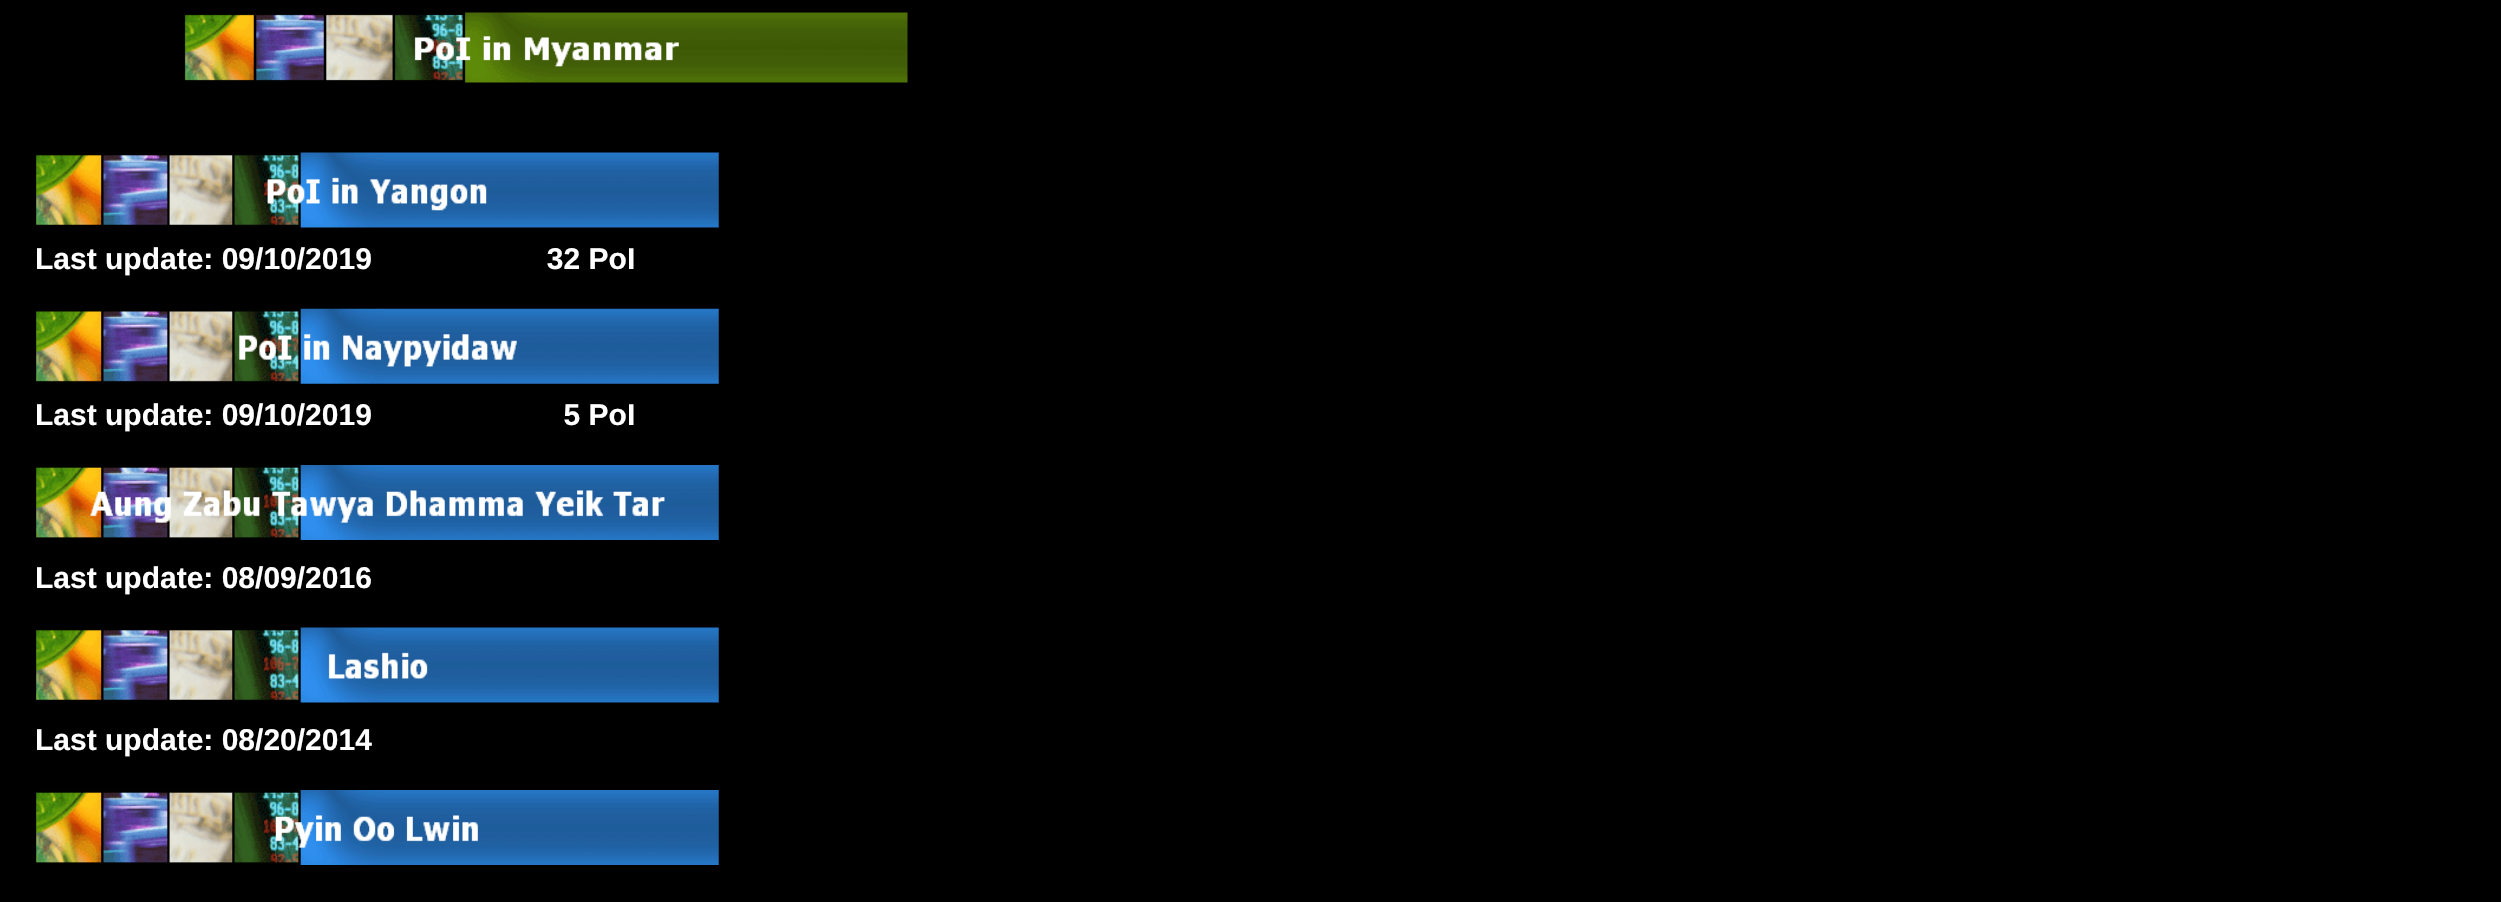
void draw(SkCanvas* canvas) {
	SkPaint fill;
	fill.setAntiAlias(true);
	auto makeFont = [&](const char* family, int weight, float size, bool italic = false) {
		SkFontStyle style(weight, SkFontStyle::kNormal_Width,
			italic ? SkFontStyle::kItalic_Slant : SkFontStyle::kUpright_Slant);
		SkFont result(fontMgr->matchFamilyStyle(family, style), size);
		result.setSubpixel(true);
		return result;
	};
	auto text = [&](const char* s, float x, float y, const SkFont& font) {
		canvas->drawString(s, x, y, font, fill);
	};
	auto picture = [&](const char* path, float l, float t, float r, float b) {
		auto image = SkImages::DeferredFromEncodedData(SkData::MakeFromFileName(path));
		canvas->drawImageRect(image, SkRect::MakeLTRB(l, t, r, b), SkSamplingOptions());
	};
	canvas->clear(0xFF000000);
	picture("image0.png", 184, 12, 908, 83);
	picture("image1.png", 36, 152, 719, 228);
	picture("image2.png", 36, 308, 719, 384);
	picture("image3.png", 36, 465, 719, 540);
	picture("image4.png", 36, 627, 719, 703);
	picture("image5.png", 36, 790, 719, 865);
	auto font1 = makeFont("Liberation Sans", 700, 30);
	fill.setColor(0xFFFFFFFF);
	text("Last update: 09/10/2019                     32 PoI", 35, 269, font1);
	text("Last update: 09/10/2019                       5 PoI", 35, 425, font1);
	text("Last update: 08/09/2016", 35, 588, font1);
	text("Last update: 08/20/2014", 35, 750, font1);
}
